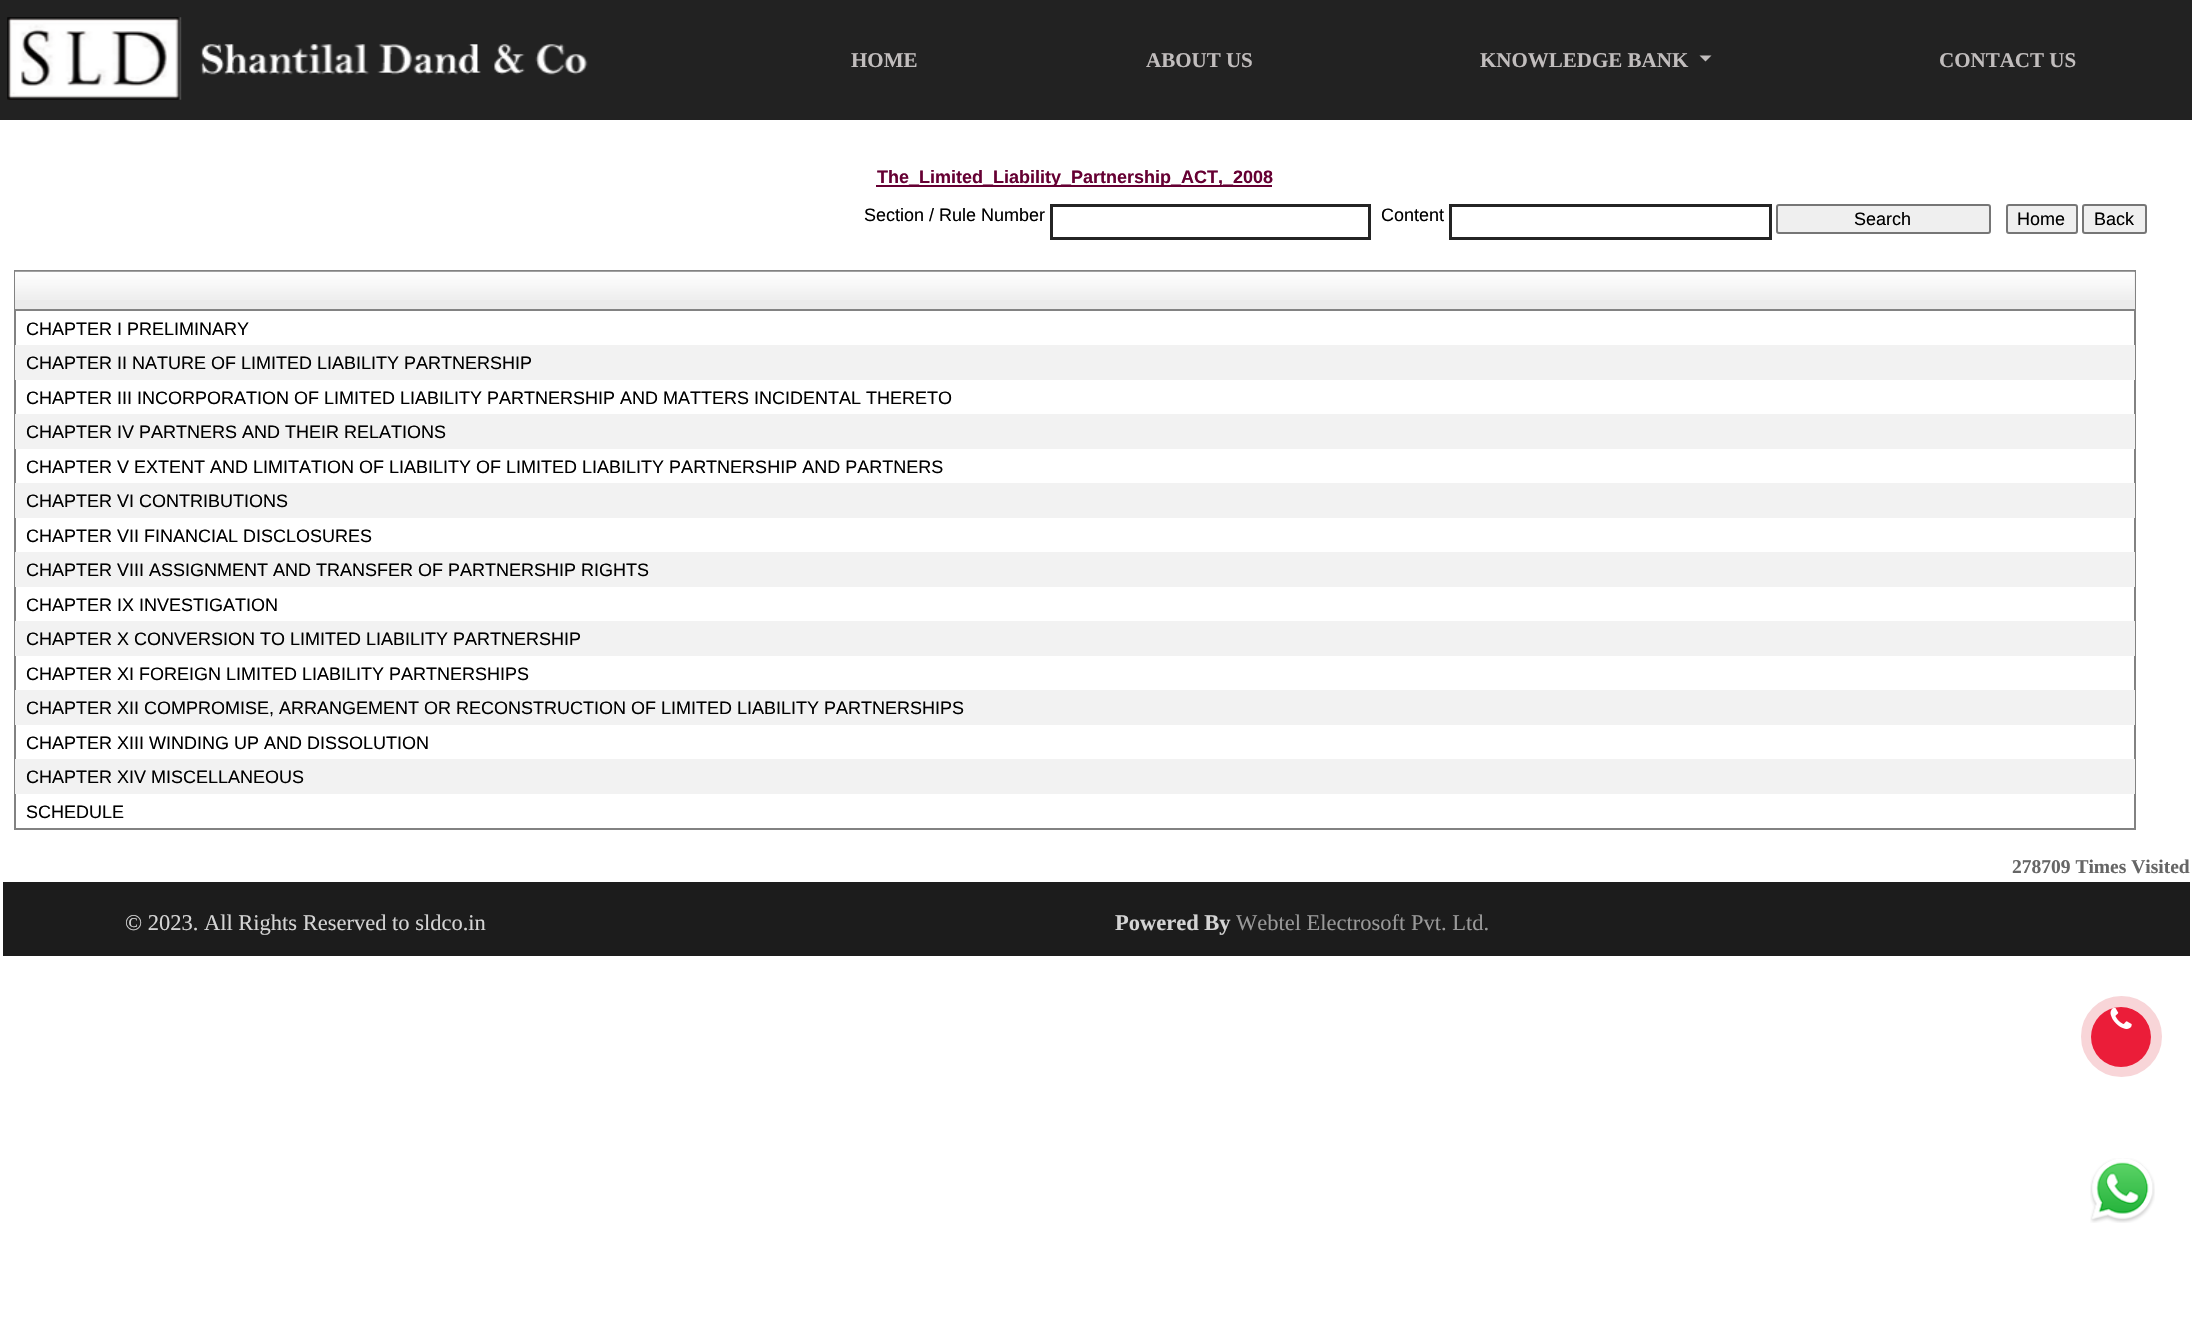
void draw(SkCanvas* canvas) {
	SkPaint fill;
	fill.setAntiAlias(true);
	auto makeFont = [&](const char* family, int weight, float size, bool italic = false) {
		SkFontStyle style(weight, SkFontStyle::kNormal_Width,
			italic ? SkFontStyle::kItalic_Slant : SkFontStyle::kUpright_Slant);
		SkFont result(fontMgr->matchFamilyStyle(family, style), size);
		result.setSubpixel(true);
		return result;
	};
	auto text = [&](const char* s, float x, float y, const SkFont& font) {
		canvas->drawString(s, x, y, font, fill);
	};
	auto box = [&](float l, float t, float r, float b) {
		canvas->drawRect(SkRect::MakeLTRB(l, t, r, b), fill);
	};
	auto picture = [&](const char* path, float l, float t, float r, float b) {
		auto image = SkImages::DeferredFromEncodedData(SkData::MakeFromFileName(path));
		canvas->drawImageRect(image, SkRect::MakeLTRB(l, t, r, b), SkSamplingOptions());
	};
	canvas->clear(0xFFFFFFFF);
	fill.setColor(0xFF222222);
	box(0, 0, 2192, 120);
	picture("image0.png", 7, 17, 588, 100);
	fill.setColor(0xFFC1BDBD);
	canvas->drawPath(SkPathBuilder().moveTo(1699.5f, 55.5f).lineTo(1711.5f, 55.5f).lineTo(1705.5f, 61.5f).close().detach(), fill);
	fill.setColor(0xFF660033);
	box(876, 185, 1272, 187);
	fill.setStyle(SkPaint::kStroke_Style);
	fill.setStrokeWidth(3);
	fill.setColor(0xFF242424);
	canvas->drawRect(SkRect::MakeLTRB(1051.5f, 205.5f, 1369.5f, 238.5f), fill);
	canvas->drawRect(SkRect::MakeLTRB(1450.5f, 205.5f, 1770.5f, 238.5f), fill);
	fill.setStyle(SkPaint::kFill_Style);
	fill.setColor(0xFFEFEFEF);
	canvas->drawRoundRect(SkRect::MakeLTRB(1777, 205, 1990, 233), 2, 2, fill);
	fill.setStyle(SkPaint::kStroke_Style);
	fill.setStrokeWidth(2);
	fill.setColor(0xFF767676);
	canvas->drawRoundRect(SkRect::MakeLTRB(1777, 205, 1990, 233), 2, 2, fill);
	fill.setStyle(SkPaint::kFill_Style);
	fill.setColor(0xFFEFEFEF);
	canvas->drawRoundRect(SkRect::MakeLTRB(2007, 205, 2077, 233), 2, 2, fill);
	fill.setStyle(SkPaint::kStroke_Style);
	fill.setColor(0xFF767676);
	canvas->drawRoundRect(SkRect::MakeLTRB(2007, 205, 2077, 233), 2, 2, fill);
	fill.setStyle(SkPaint::kFill_Style);
	fill.setColor(0xFFEFEFEF);
	canvas->drawRoundRect(SkRect::MakeLTRB(2083, 205, 2146, 233), 2, 2, fill);
	fill.setStyle(SkPaint::kStroke_Style);
	fill.setColor(0xFF767676);
	canvas->drawRoundRect(SkRect::MakeLTRB(2083, 205, 2146, 233), 2, 2, fill);
	fill.setColor(0xFF828282);
	canvas->drawRect(SkRect::MakeLTRB(15, 271, 2135, 829), fill);
	fill.setStyle(SkPaint::kFill_Style);
	fill.setColor(0xFFEAEAEA);
	box(15, 272, 2135, 309);
	picture("image1.png", 15, 271, 2135, 300);
	fill.setColor(0xFF828282);
	box(15, 309, 2135, 311);
	fill.setColor(0xFFF2F2F2);
	box(15, 345, 2135, 380);
	box(15, 414, 2135, 449);
	box(15, 483, 2135, 518);
	box(15, 552, 2135, 587);
	box(15, 621, 2135, 656);
	box(15, 690, 2135, 725);
	box(15, 759, 2135, 794);
	fill.setColor(0xFF1C1C1C);
	box(3, 882, 2190, 956);
	fill.setStyle(SkPaint::kStroke_Style);
	fill.setStrokeWidth(11);
	fill.setColor(0xFFF8D5D8);
	canvas->drawCircle(2121.5f, 1036.5f, 35, fill);
	fill.setStyle(SkPaint::kFill_Style);
	fill.setColor(0xFFEB1D39);
	canvas->drawCircle(2121, 1037, 30, fill);
	picture("image2.png", 2110, 1007, 2132, 1029);
	picture("image3.png", 2090, 1158, 2155, 1223);
	auto font1 = makeFont("Liberation Serif", 700, 21);
	fill.setColor(0xFFC1BDBD);
	text("HOME", 851, 67, font1);
	text("ABOUT US", 1146, 67, font1);
	text("KNOWLEDGE BANK", 1480, 67, font1);
	text("CONTACT US", 1939, 67, font1);
	auto font2 = makeFont("Liberation Sans", 700, 18);
	fill.setColor(0xFF660033);
	text("The_Limited_Liability_Partnership_ACT,_2008", 877, 183, font2);
	auto font3 = makeFont("Liberation Sans", 400, 18);
	fill.setColor(0xFF000000);
	text("Section / Rule Number", 864, 221, font3);
	text("Content", 1381, 221, font3);
	text("Search", 1854, 225, font3);
	text("Home", 2017, 225, font3);
	text("Back", 2094, 225, font3);
	text("CHAPTER I PRELIMINARY", 26, 335, font3);
	text("CHAPTER II NATURE OF LIMITED LIABILITY PARTNERSHIP", 26, 369, font3);
	text("CHAPTER III INCORPORATION OF LIMITED LIABILITY PARTNERSHIP AND MATTERS INCIDENTAL THERETO", 26, 404, font3);
	text("CHAPTER IV PARTNERS AND THEIR RELATIONS", 26, 438, font3);
	text("CHAPTER V EXTENT AND LIMITATION OF LIABILITY OF LIMITED LIABILITY PARTNERSHIP AND PARTNERS", 26, 473, font3);
	text("CHAPTER VI CONTRIBUTIONS", 26, 507, font3);
	text("CHAPTER VII FINANCIAL DISCLOSURES", 26, 542, font3);
	text("CHAPTER VIII ASSIGNMENT AND TRANSFER OF PARTNERSHIP RIGHTS", 26, 576, font3);
	text("CHAPTER IX INVESTIGATION", 26, 611, font3);
	text("CHAPTER X CONVERSION TO LIMITED LIABILITY PARTNERSHIP", 26, 645, font3);
	text("CHAPTER XI FOREIGN LIMITED LIABILITY PARTNERSHIPS", 26, 680, font3);
	text("CHAPTER XII COMPROMISE, ARRANGEMENT OR RECONSTRUCTION OF LIMITED LIABILITY PARTNERSHIPS", 26, 714, font3);
	text("CHAPTER XIII WINDING UP AND DISSOLUTION", 26, 749, font3);
	text("CHAPTER XIV MISCELLANEOUS", 26, 783, font3);
	text("SCHEDULE", 26, 818, font3);
	auto font4 = makeFont("Liberation Serif", 700, 19.5f);
	fill.setColor(0xFF666666);
	text("278709 Times Visited", 2012, 873, font4);
	auto font5 = makeFont("Liberation Serif", 400, 22.5f);
	fill.setColor(0xFFD4D4D4);
	text("© 2023. All Rights Reserved to sldco.in", 125, 930, font5);
	auto font6 = makeFont("Liberation Serif", 700, 22.5f);
	text("Powered By", 1115, 930, font6);
	fill.setColor(0xFF999999);
	text("Webtel Electrosoft Pvt. Ltd.", 1236, 930, font5);
}
